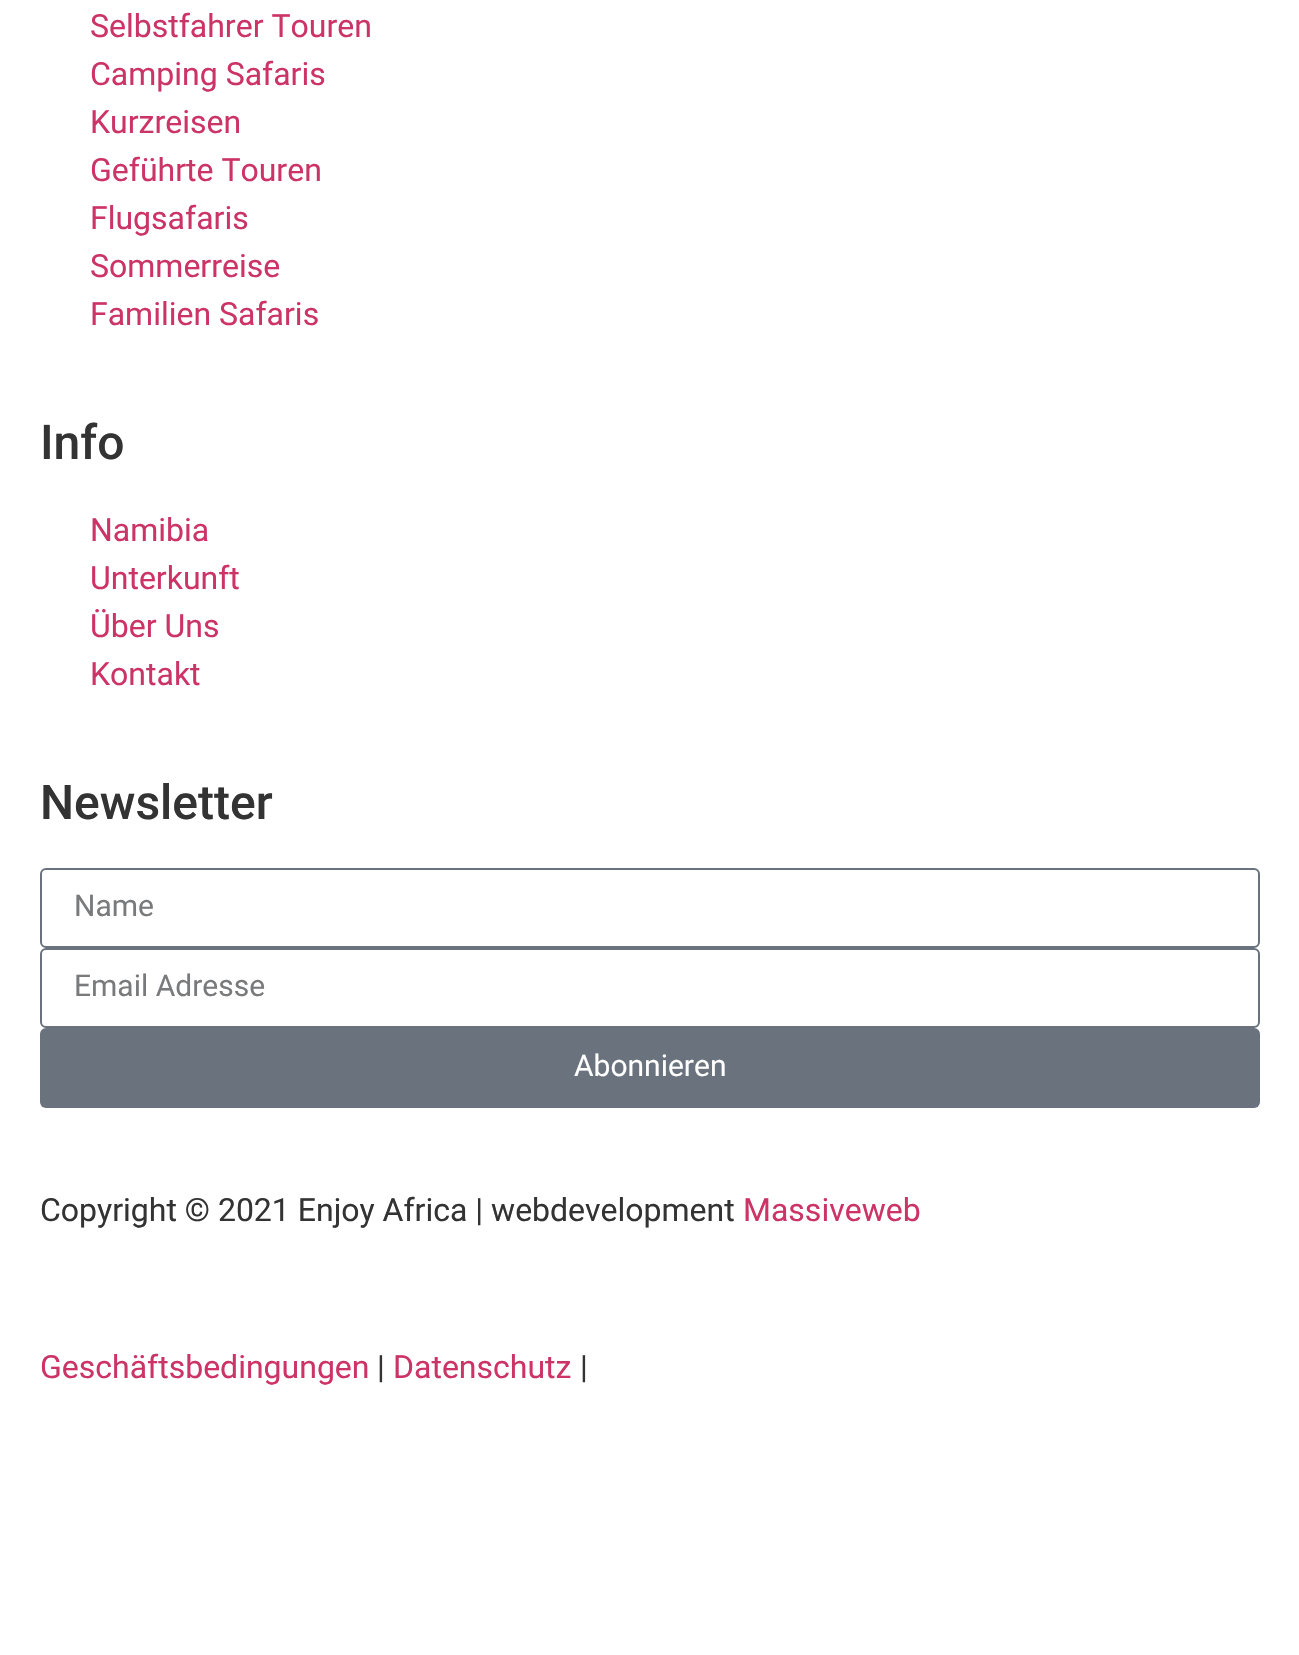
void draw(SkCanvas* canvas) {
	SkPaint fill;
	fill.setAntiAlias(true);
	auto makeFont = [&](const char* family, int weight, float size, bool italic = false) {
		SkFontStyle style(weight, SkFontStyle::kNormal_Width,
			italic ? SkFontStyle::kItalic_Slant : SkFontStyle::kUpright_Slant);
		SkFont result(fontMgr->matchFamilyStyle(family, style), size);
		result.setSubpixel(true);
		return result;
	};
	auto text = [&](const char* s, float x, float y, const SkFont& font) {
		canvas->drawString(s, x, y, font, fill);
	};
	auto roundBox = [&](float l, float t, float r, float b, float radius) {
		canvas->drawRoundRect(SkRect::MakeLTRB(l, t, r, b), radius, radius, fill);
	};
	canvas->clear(0xFFFFFFFF);
	fill.setStyle(SkPaint::kStroke_Style);
	fill.setStrokeWidth(2);
	fill.setColor(0xFF69727D);
	canvas->drawRoundRect(SkRect::MakeLTRB(41, 869, 1259, 947), 5, 5, fill);
	canvas->drawRoundRect(SkRect::MakeLTRB(41, 949, 1259, 1027), 5, 5, fill);
	fill.setStyle(SkPaint::kFill_Style);
	roundBox(40, 1028, 1260, 1108, 6);
	auto font1 = makeFont("Roboto", 400, 32);
	fill.setColor(0xFFCC3366);
	text("Selbstfahrer Touren", 90, 37, font1);
	text("Camping Safaris", 90, 85, font1);
	text("Kurzreisen", 90, 133, font1);
	text("Geführte Touren", 90, 181, font1);
	text("Flugsafaris", 90, 229, font1);
	text("Sommerreise", 90, 277, font1);
	text("Familien Safaris", 90, 325, font1);
	auto font2 = makeFont("Roboto", 500, 48);
	fill.setColor(0xFF333333);
	text("Info", 40, 459, font2);
	fill.setColor(0xFFCC3366);
	text("Namibia", 90, 541, font1);
	text("Unterkunft", 90, 589, font1);
	text("Über Uns", 90, 637, font1);
	text("Kontakt", 90, 685, font1);
	fill.setColor(0xFF333333);
	text("Newsletter", 40, 819, font2);
	auto font3 = makeFont("Roboto", 400, 30);
	fill.setColor(0xFF797A7C);
	text("Name", 74, 916, font3);
	text("Email Adresse", 74, 996, font3);
	fill.setColor(0xFFFFFFFF);
	text("Abonnieren", 574, 1076, font3);
	fill.setColor(0xFF333333);
	text("Copyright © 2021 Enjoy Africa | webdevelopment", 40, 1221, font1);
	fill.setColor(0xFFCC3366);
	text("Massiveweb", 743, 1221, font1);
	text("Geschäftsbedingungen", 40, 1378, font1);
	fill.setColor(0xFF333333);
	text("|", 377, 1378, font1);
	fill.setColor(0xFFCC3366);
	text("Datenschutz", 393, 1378, font1);
	fill.setColor(0xFF333333);
	text("|", 580, 1378, font1);
}
